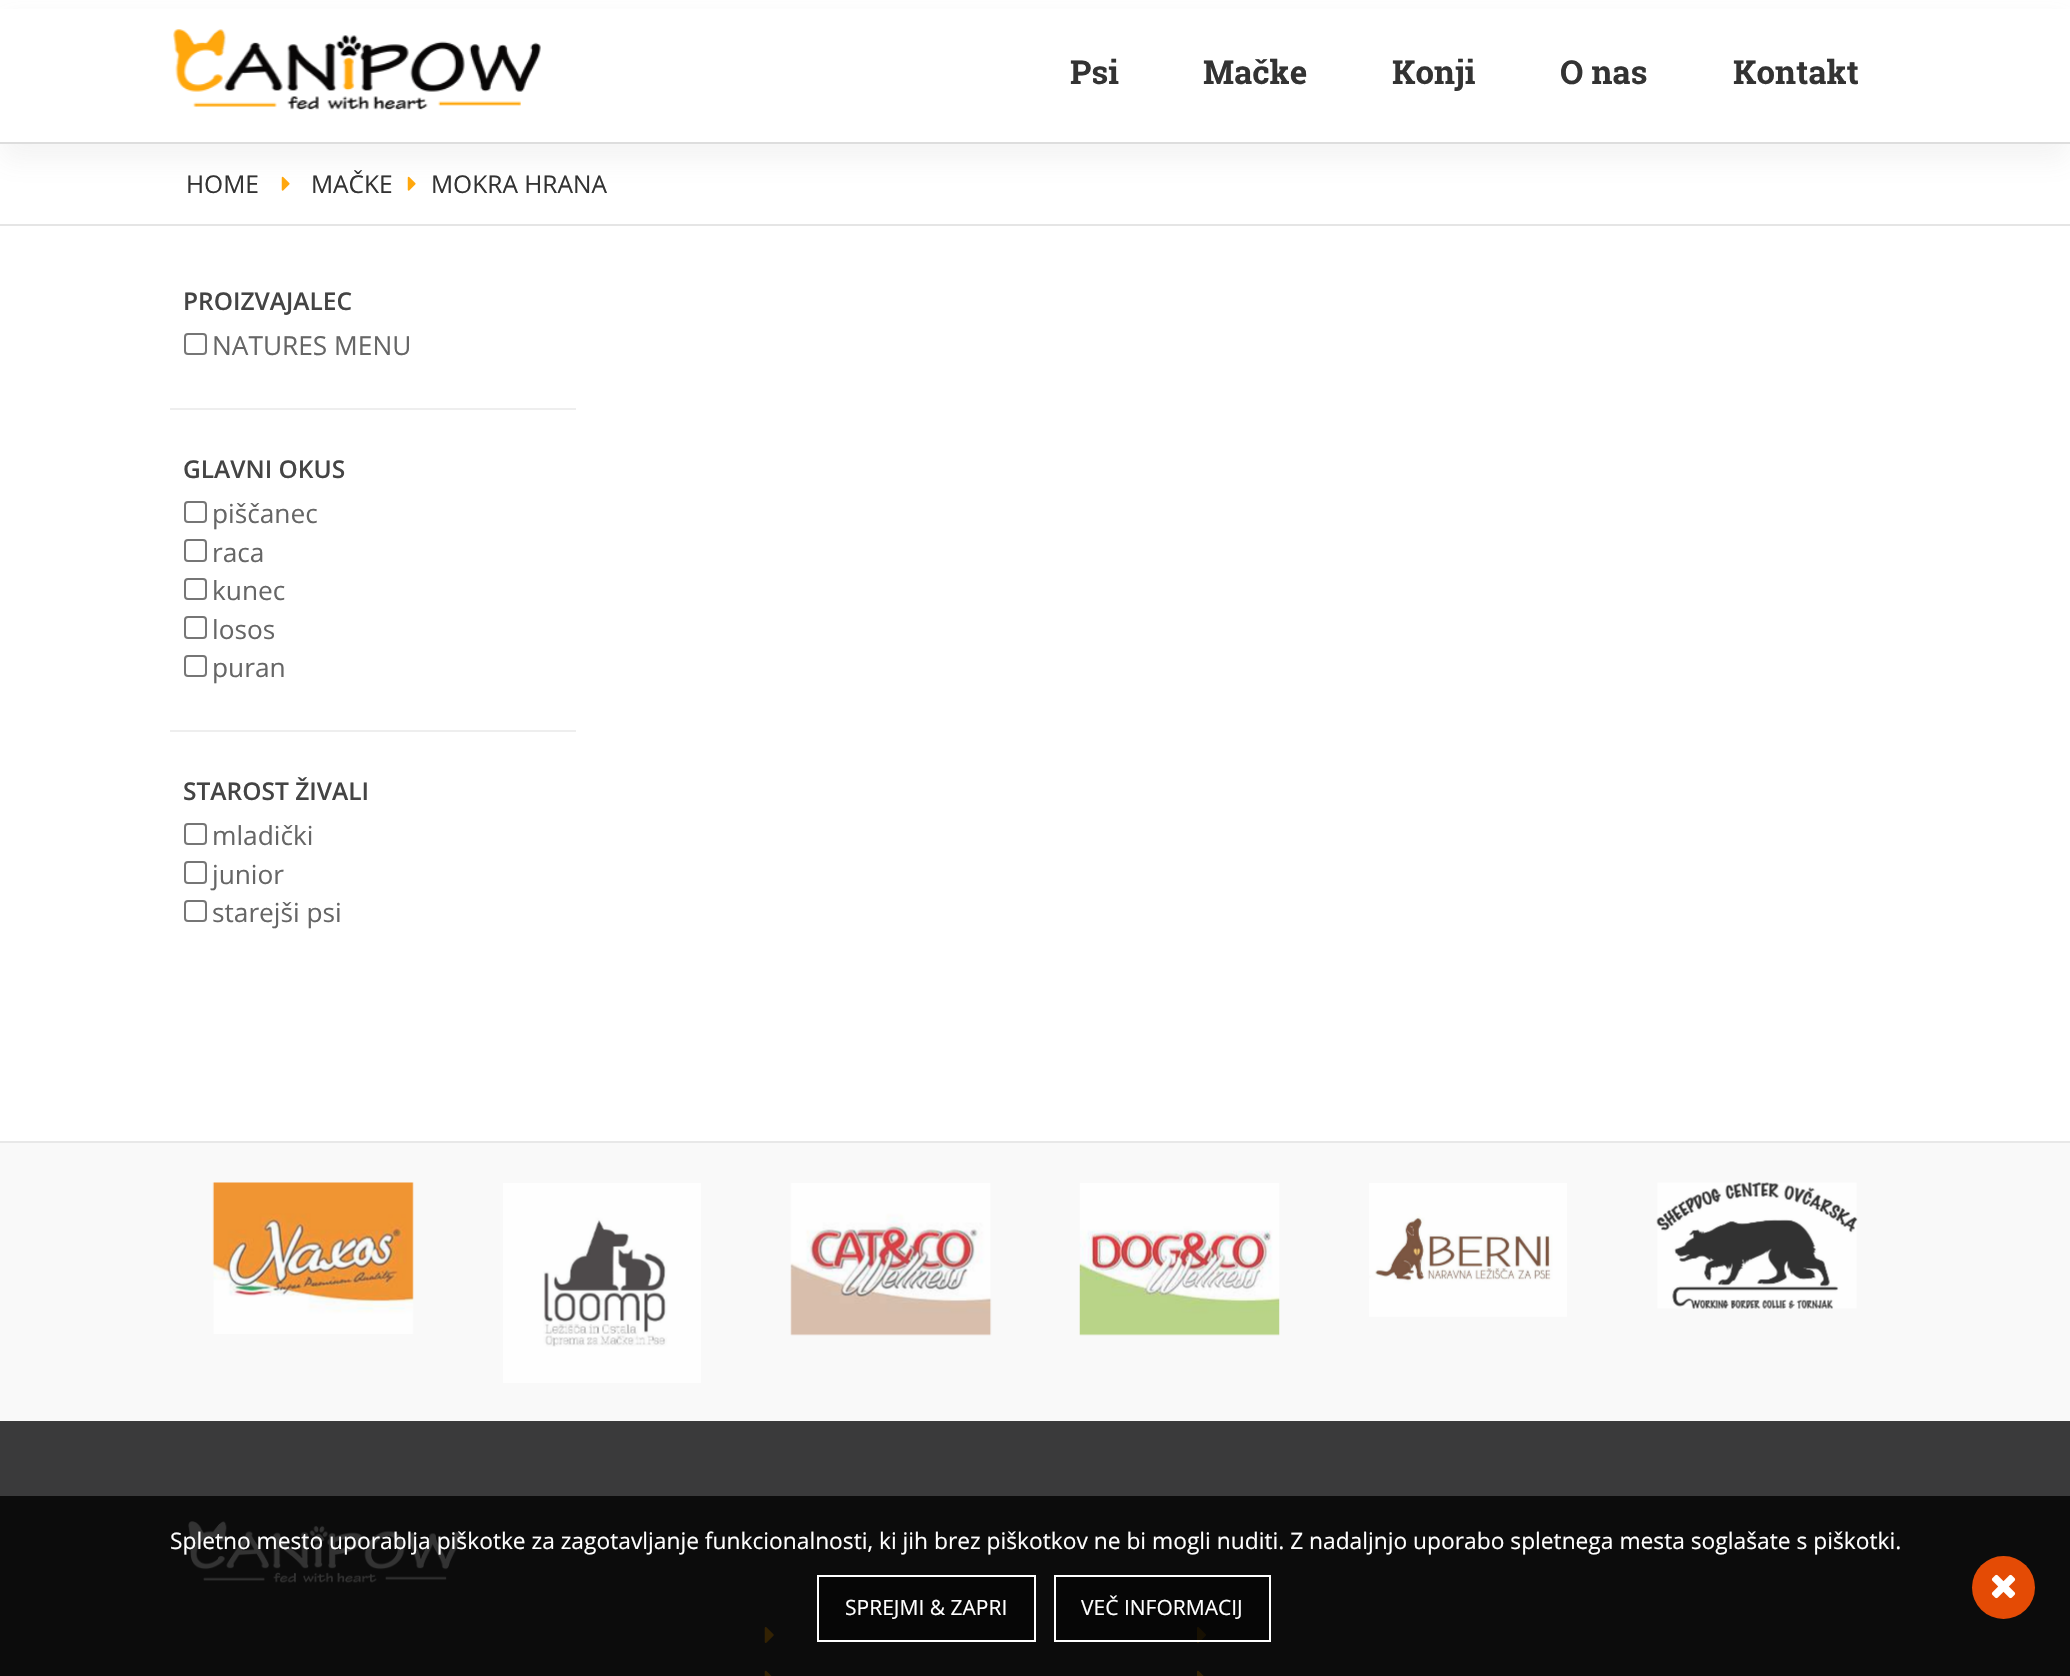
void draw(SkCanvas* canvas) {
	SkPaint fill;
	fill.setAntiAlias(true);
	auto makeFont = [&](const char* family, int weight, float size, bool italic = false) {
		SkFontStyle style(weight, SkFontStyle::kNormal_Width,
			italic ? SkFontStyle::kItalic_Slant : SkFontStyle::kUpright_Slant);
		SkFont result(fontMgr->matchFamilyStyle(family, style), size);
		result.setSubpixel(true);
		return result;
	};
	auto text = [&](const char* s, float x, float y, const SkFont& font) {
		canvas->drawString(s, x, y, font, fill);
	};
	auto box = [&](float l, float t, float r, float b) {
		canvas->drawRect(SkRect::MakeLTRB(l, t, r, b), fill);
	};
	auto picture = [&](const char* path, float l, float t, float r, float b) {
		auto image = SkImages::DeferredFromEncodedData(SkData::MakeFromFileName(path));
		canvas->drawImageRect(image, SkRect::MakeLTRB(l, t, r, b), SkSamplingOptions());
	};
	canvas->clear(0xFFFFFFFF);
	fill.setColor(0x14787878);
	fill.setMaskFilter(SkMaskFilter::MakeBlur(kNormal_SkBlurStyle, 13));
	canvas->drawRect(SkRect::MakeLTRB(0, 18, 2070, 161), fill);
	fill.setMaskFilter(nullptr);
	fill.setColor(0xFFFFFFFF);
	box(0, 9, 2070, 142);
	fill.setColor(0xFFDDDDDD);
	box(0, 142, 2070, 144);
	picture("image0.png", 173, 29, 541, 110);
	fill.setColor(0xFFE5E5E5);
	box(0, 224, 2070, 226);
	picture("image1.png", 281, 176, 290, 191);
	picture("image1.png", 407, 176, 416, 191);
	fill.setColor(0xFFEEEEEE);
	box(170, 408, 576, 410);
	fill.setStyle(SkPaint::kStroke_Style);
	fill.setStrokeWidth(2);
	fill.setColor(0xFF767676);
	canvas->drawRoundRect(SkRect::MakeLTRB(185, 334, 206, 354), 3, 3, fill);
	fill.setStyle(SkPaint::kFill_Style);
	fill.setColor(0xFFEEEEEE);
	box(170, 730, 576, 732);
	fill.setStyle(SkPaint::kStroke_Style);
	fill.setColor(0xFF767676);
	canvas->drawRoundRect(SkRect::MakeLTRB(185, 502, 206, 522), 3, 3, fill);
	canvas->drawRoundRect(SkRect::MakeLTRB(185, 540, 206, 561), 3, 3, fill);
	canvas->drawRoundRect(SkRect::MakeLTRB(185, 579, 206, 599), 3, 3, fill);
	canvas->drawRoundRect(SkRect::MakeLTRB(185, 617, 206, 638), 3, 3, fill);
	canvas->drawRoundRect(SkRect::MakeLTRB(185, 656, 206, 676), 3, 3, fill);
	canvas->drawRoundRect(SkRect::MakeLTRB(185, 824, 206, 844), 3, 3, fill);
	canvas->drawRoundRect(SkRect::MakeLTRB(185, 862, 206, 883), 3, 3, fill);
	canvas->drawRoundRect(SkRect::MakeLTRB(185, 901, 206, 921), 3, 3, fill);
	fill.setStyle(SkPaint::kFill_Style);
	fill.setColor(0xFFF9F9F9);
	box(0, 1143, 2070, 1421);
	fill.setColor(0xFFE8E8E8);
	box(0, 1141, 2070, 1143);
	picture("image2.png", 212, 1182, 414, 1334);
	picture("image3.png", 503, 1183, 701, 1383);
	picture("image4.png", 790, 1183, 992, 1336);
	picture("image5.png", 1079, 1183, 1280, 1336);
	picture("image6.png", 1369, 1183, 1567, 1317);
	picture("image7.png", 1656, 1182, 1858, 1309);
	fill.setColor(0xFF3A3A3B);
	box(0, 1421, 2070, 1676);
	picture("image8.png", 188, 1521, 461, 1583);
	picture("image9.png", 764, 1627, 774, 1643);
	picture("image10.png", 764, 1670, 772, 1676);
	picture("image11.png", 1197, 1627, 1206, 1643);
	picture("image12.png", 1197, 1670, 1204, 1676);
	fill.setColor(0xCC000000);
	box(0, 1496, 2070, 1676);
	fill.setColor(0x8C000000);
	canvas->drawRect(SkRect::MakeLTRB(818, 1576, 1035, 1641), fill);
	fill.setStyle(SkPaint::kStroke_Style);
	fill.setColor(0xFFFFFFFF);
	canvas->drawRect(SkRect::MakeLTRB(818, 1576, 1035, 1641), fill);
	fill.setStyle(SkPaint::kFill_Style);
	fill.setColor(0x8C000000);
	canvas->drawRect(SkRect::MakeLTRB(1055, 1576, 1270, 1641), fill);
	fill.setStyle(SkPaint::kStroke_Style);
	fill.setColor(0xFFFFFFFF);
	canvas->drawRect(SkRect::MakeLTRB(1055, 1576, 1270, 1641), fill);
	fill.setStyle(SkPaint::kFill_Style);
	fill.setColor(0xFFE44B05);
	canvas->drawCircle(2003.5f, 1587.5f, 31.5f, fill);
	picture("image13.png", 1991, 1574, 2016, 1599);
	auto font1 = makeFont("Roboto Slab", 700, 33);
	fill.setColor(0xFF333333);
	text("Psi", 1070, 84, font1);
	text("Mačke", 1203, 84, font1);
	text("Konji", 1392, 84, font1);
	text("O nas", 1560, 84, font1);
	text("Kontakt", 1733, 84, font1);
	auto font2 = makeFont("Open Sans", 400, 24.5f);
	text("HOME", 186, 193, font2);
	text("MAČKE", 311, 193, font2);
	text("MOKRA HRANA", 431, 193, font2);
	auto font3 = makeFont("Open Sans", 600, 24.5f);
	fill.setColor(0xFF444444);
	text("PROIZVAJALEC", 183, 310, font3);
	auto font4 = makeFont("Open Sans", 400, 26.25f);
	fill.setColor(0xFF666666);
	text("NATURES MENU", 212, 355, font4);
	fill.setColor(0xFF444444);
	text("GLAVNI OKUS", 183, 478, font3);
	fill.setColor(0xFF666666);
	text("piščanec", 212, 523, font4);
	text("raca", 212, 562, font4);
	text("kunec", 212, 600, font4);
	text("losos", 212, 639, font4);
	text("puran", 212, 677, font4);
	fill.setColor(0xFF444444);
	text("STAROST ŽIVALI", 183, 800, font3);
	fill.setColor(0xFF666666);
	text("mladički", 212, 845, font4);
	text("junior", 212, 884, font4);
	text("starejši psi", 212, 922, font4);
	auto font5 = makeFont("Open Sans", 400, 22.75f);
	fill.setColor(0xFFFFFFFF);
	text("Spletno mesto uporablja piškotke za zagotavljanje funkcionalnosti, ki jih brez piškotkov ne bi mogli nuditi. Z nadaljnjo uporabo spletnega mesta soglašate s piškotki.", 170, 1549, font5);
	auto font6 = makeFont("Open Sans", 400, 21);
	text("SPREJMI & ZAPRI", 845, 1615, font6);
	text("VEČ INFORMACIJ", 1081, 1615, font6);
}
